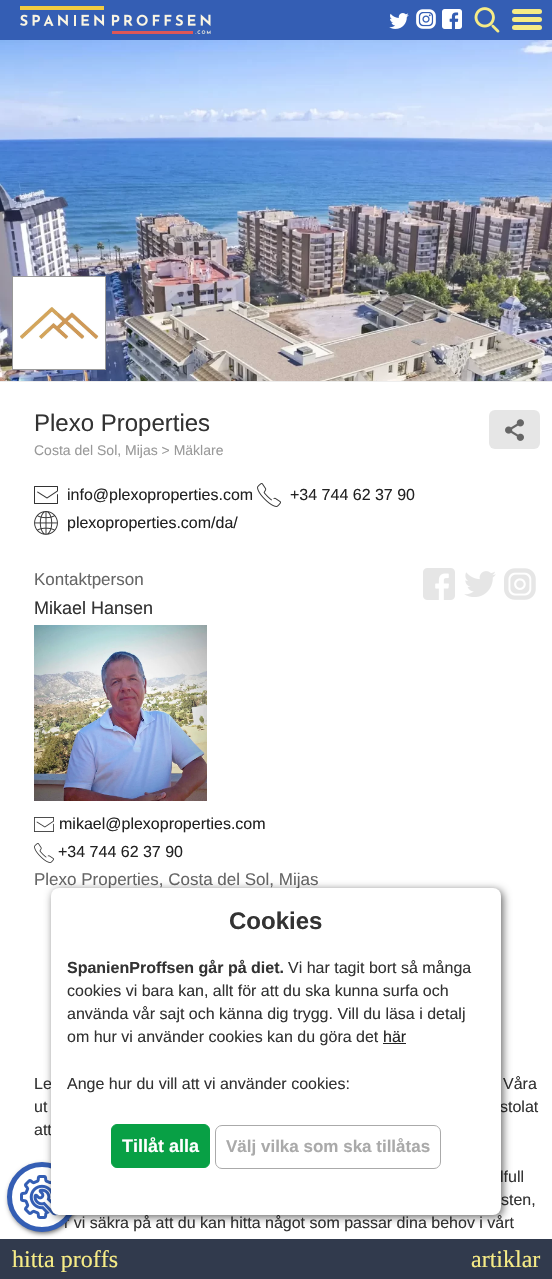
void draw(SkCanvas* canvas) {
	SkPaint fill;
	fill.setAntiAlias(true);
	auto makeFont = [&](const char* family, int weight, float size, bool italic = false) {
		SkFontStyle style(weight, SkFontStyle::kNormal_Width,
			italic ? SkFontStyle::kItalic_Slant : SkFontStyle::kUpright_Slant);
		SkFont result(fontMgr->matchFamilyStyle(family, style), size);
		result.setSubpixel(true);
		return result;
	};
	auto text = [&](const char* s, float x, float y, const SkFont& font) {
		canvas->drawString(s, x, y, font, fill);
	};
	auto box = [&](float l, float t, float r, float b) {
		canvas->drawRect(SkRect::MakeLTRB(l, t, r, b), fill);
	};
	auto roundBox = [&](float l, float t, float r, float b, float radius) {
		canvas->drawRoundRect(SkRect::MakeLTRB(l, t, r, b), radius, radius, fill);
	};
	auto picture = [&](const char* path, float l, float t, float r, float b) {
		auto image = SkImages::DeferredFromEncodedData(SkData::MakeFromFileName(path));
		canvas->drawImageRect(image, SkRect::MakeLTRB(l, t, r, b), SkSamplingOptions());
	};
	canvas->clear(0xFFEEEEEE);
	fill.setColor(0xFF345EB4);
	box(0, 0, 552, 40);
	picture("image0.png", 20, 6, 211, 34);
	picture("image1.png", 389, 13, 409, 29);
	picture("image2.png", 416, 9, 436, 29);
	picture("image3.png", 442, 9, 462, 29);
	picture("image4.png", 474, 7, 500, 33);
	fill.setColor(0xFFF6EB86);
	roundBox(512, 9, 542, 14, 2.5f);
	roundBox(512, 17, 542, 22, 2.5f);
	roundBox(512, 25, 542, 30, 2.5f);
	picture("image5.png", 0, 40, 552, 381);
	fill.setColor(0xFFFFFFFF);
	box(0, 382, 552, 1239);
	canvas->drawRect(SkRect::MakeLTRB(12.5f, 276.5f, 105.5f, 369.5f), fill);
	fill.setStyle(SkPaint::kStroke_Style);
	fill.setStrokeWidth(1);
	fill.setColor(0xFF999999);
	canvas->drawRect(SkRect::MakeLTRB(12.5f, 276.5f, 105.5f, 369.5f), fill);
	picture("image6.png", 20, 307, 99, 339);
	fill.setStyle(SkPaint::kFill_Style);
	fill.setColor(0xFFE6E6E6);
	roundBox(489, 410, 540, 449, 6);
	picture("image7.png", 505, 419, 524, 441);
	picture("image8.png", 34, 486, 58, 504);
	picture("image9.png", 257, 483, 281, 507);
	picture("image10.png", 34, 511, 58, 535);
	picture("image11.png", 423, 568, 455, 600);
	picture("image12.png", 464, 571, 496, 597);
	picture("image13.png", 504, 568, 536, 600);
	picture("image14.png", 34, 625, 207, 801);
	picture("image15.png", 34, 817, 54, 832);
	picture("image16.png", 34, 843, 54, 863);
	fill.setColor(0xAB000000);
	fill.setMaskFilter(SkMaskFilter::MakeBlur(kNormal_SkBlurStyle, 2.5f));
	canvas->drawRoundRect(SkRect::MakeLTRB(9, 1165, 77, 1233), 34, 34, fill);
	fill.setMaskFilter(nullptr);
	fill.setColor(0xFF313A4D);
	box(0, 1239, 552, 1279);
	auto font1 = makeFont("Liberation Sans", 400, 24);
	fill.setColor(0xFF333333);
	text("Plexo Properties", 34, 431, font1);
	auto font2 = makeFont("Liberation Sans", 400, 14);
	fill.setColor(0xFF999999);
	text("Costa del Sol, Mijas > Mäklare", 34, 455, font2);
	auto font3 = makeFont("Liberation Sans", 400, 16);
	fill.setColor(0xFF222222);
	text("info@plexoproperties.com", 67, 500, font3);
	text("+34 744 62 37 90", 290, 500, font3);
	text("plexoproperties.com/da/", 67, 528, font3);
	auto font4 = makeFont("Liberation Sans", 400, 17);
	fill.setColor(0xFF666666);
	text("Kontaktperson", 34, 585, font4);
	auto font5 = makeFont("Liberation Sans", 400, 18);
	fill.setColor(0xFF333333);
	text("Mikael Hansen", 34, 614, font5);
	fill.setColor(0xFF222222);
	text("mikael@plexoproperties.com", 59, 829, font3);
	text("+34 744 62 37 90", 58, 857, font3);
	fill.setColor(0xFF666666);
	text("Plexo Properties, Costa del Sol, Mijas", 34, 885, font4);
	fill.setColor(0xFF333333);
	text("Le", 34, 1089, font3);
	text("Våra", 503, 1089, font3);
	text("ut", 34, 1112, font3);
	text("stolat", 500, 1112, font3);
	text("att", 34, 1135, font3);
	text("lfull", 500, 1182, font3);
	text("sten,", 501, 1205, font3);
	text("r vi säkra på att du kan hitta något som passar dina behov i vårt", 64, 1228, font3);
	fill.setColor(0xFFFFFFFF);
	canvas->drawCircle(42, 1197, 32.5f, fill);
	fill.setStyle(SkPaint::kStroke_Style);
	fill.setStrokeWidth(5);
	fill.setColor(0xFF345EB4);
	canvas->drawCircle(42, 1197, 32.5f, fill);
	picture("image17.png", 20, 1175, 59, 1219);
	fill.setStyle(SkPaint::kFill_Style);
	fill.setColor(0x99000000);
	fill.setMaskFilter(SkMaskFilter::MakeBlur(kNormal_SkBlurStyle, 4.5f));
	canvas->drawRoundRect(SkRect::MakeLTRB(53, 890, 503, 1217), 8, 8, fill);
	fill.setMaskFilter(nullptr);
	fill.setColor(0xFFFFFFFF);
	roundBox(51, 888, 501, 1215, 8);
	fill.setStyle(SkPaint::kStroke_Style);
	fill.setStrokeWidth(1);
	fill.setColor(0xFFAAAAAA);
	canvas->drawRoundRect(SkRect::MakeLTRB(215.5f, 1125.5f, 440.5f, 1168.5f), 6.5f, 6.5f, fill);
	auto font6 = makeFont("Liberation Sans", 700, 17);
	fill.setStyle(SkPaint::kFill_Style);
	text("Välj vilka som ska tillåtas", 226, 1152, font6);
	fill.setColor(0xFF08A045);
	canvas->drawRoundRect(SkRect::MakeLTRB(111.5f, 1124.5f, 209.5f, 1167.5f), 5.5f, 5.5f, fill);
	fill.setStyle(SkPaint::kStroke_Style);
	canvas->drawRoundRect(SkRect::MakeLTRB(111.5f, 1124.5f, 209.5f, 1167.5f), 5.5f, 5.5f, fill);
	auto font7 = makeFont("Liberation Sans", 700, 18);
	fill.setStyle(SkPaint::kFill_Style);
	fill.setColor(0xFFFFFFFF);
	text("Tillåt alla", 122, 1152, font7);
	fill.setColor(0xFF333333);
	text("Ange hur du vill att vi använder cookies:", 67, 1089, font3);
	fill.setColor(0xFF222222);
	text("här", 383, 1042, font3);
	box(383, 1043, 406, 1044);
	fill.setColor(0xFF333333);
	text("om hur vi använder cookies kan du göra det", 67, 1042, font3);
	text("använda vår sajt och känna dig trygg. Vill du läsa i detalj", 67, 1019, font3);
	text("cookies vi bara kan, allt för att du ska kunna surfa och", 67, 996, font3);
	text("Vi har tagit bort så många", 288, 973, font3);
	auto font8 = makeFont("Liberation Sans", 700, 16);
	text("SpanienProffsen går på diet.", 67, 973, font8);
	auto font9 = makeFont("Liberation Sans", 700, 24);
	text("Cookies", 229, 929, font9);
	auto font10 = makeFont("Liberation Serif", 400, 24);
	fill.setColor(0xFFF6EB86);
	text("hitta proffs", 12, 1267, font10);
	text("artiklar", 471, 1267, font10);
}
